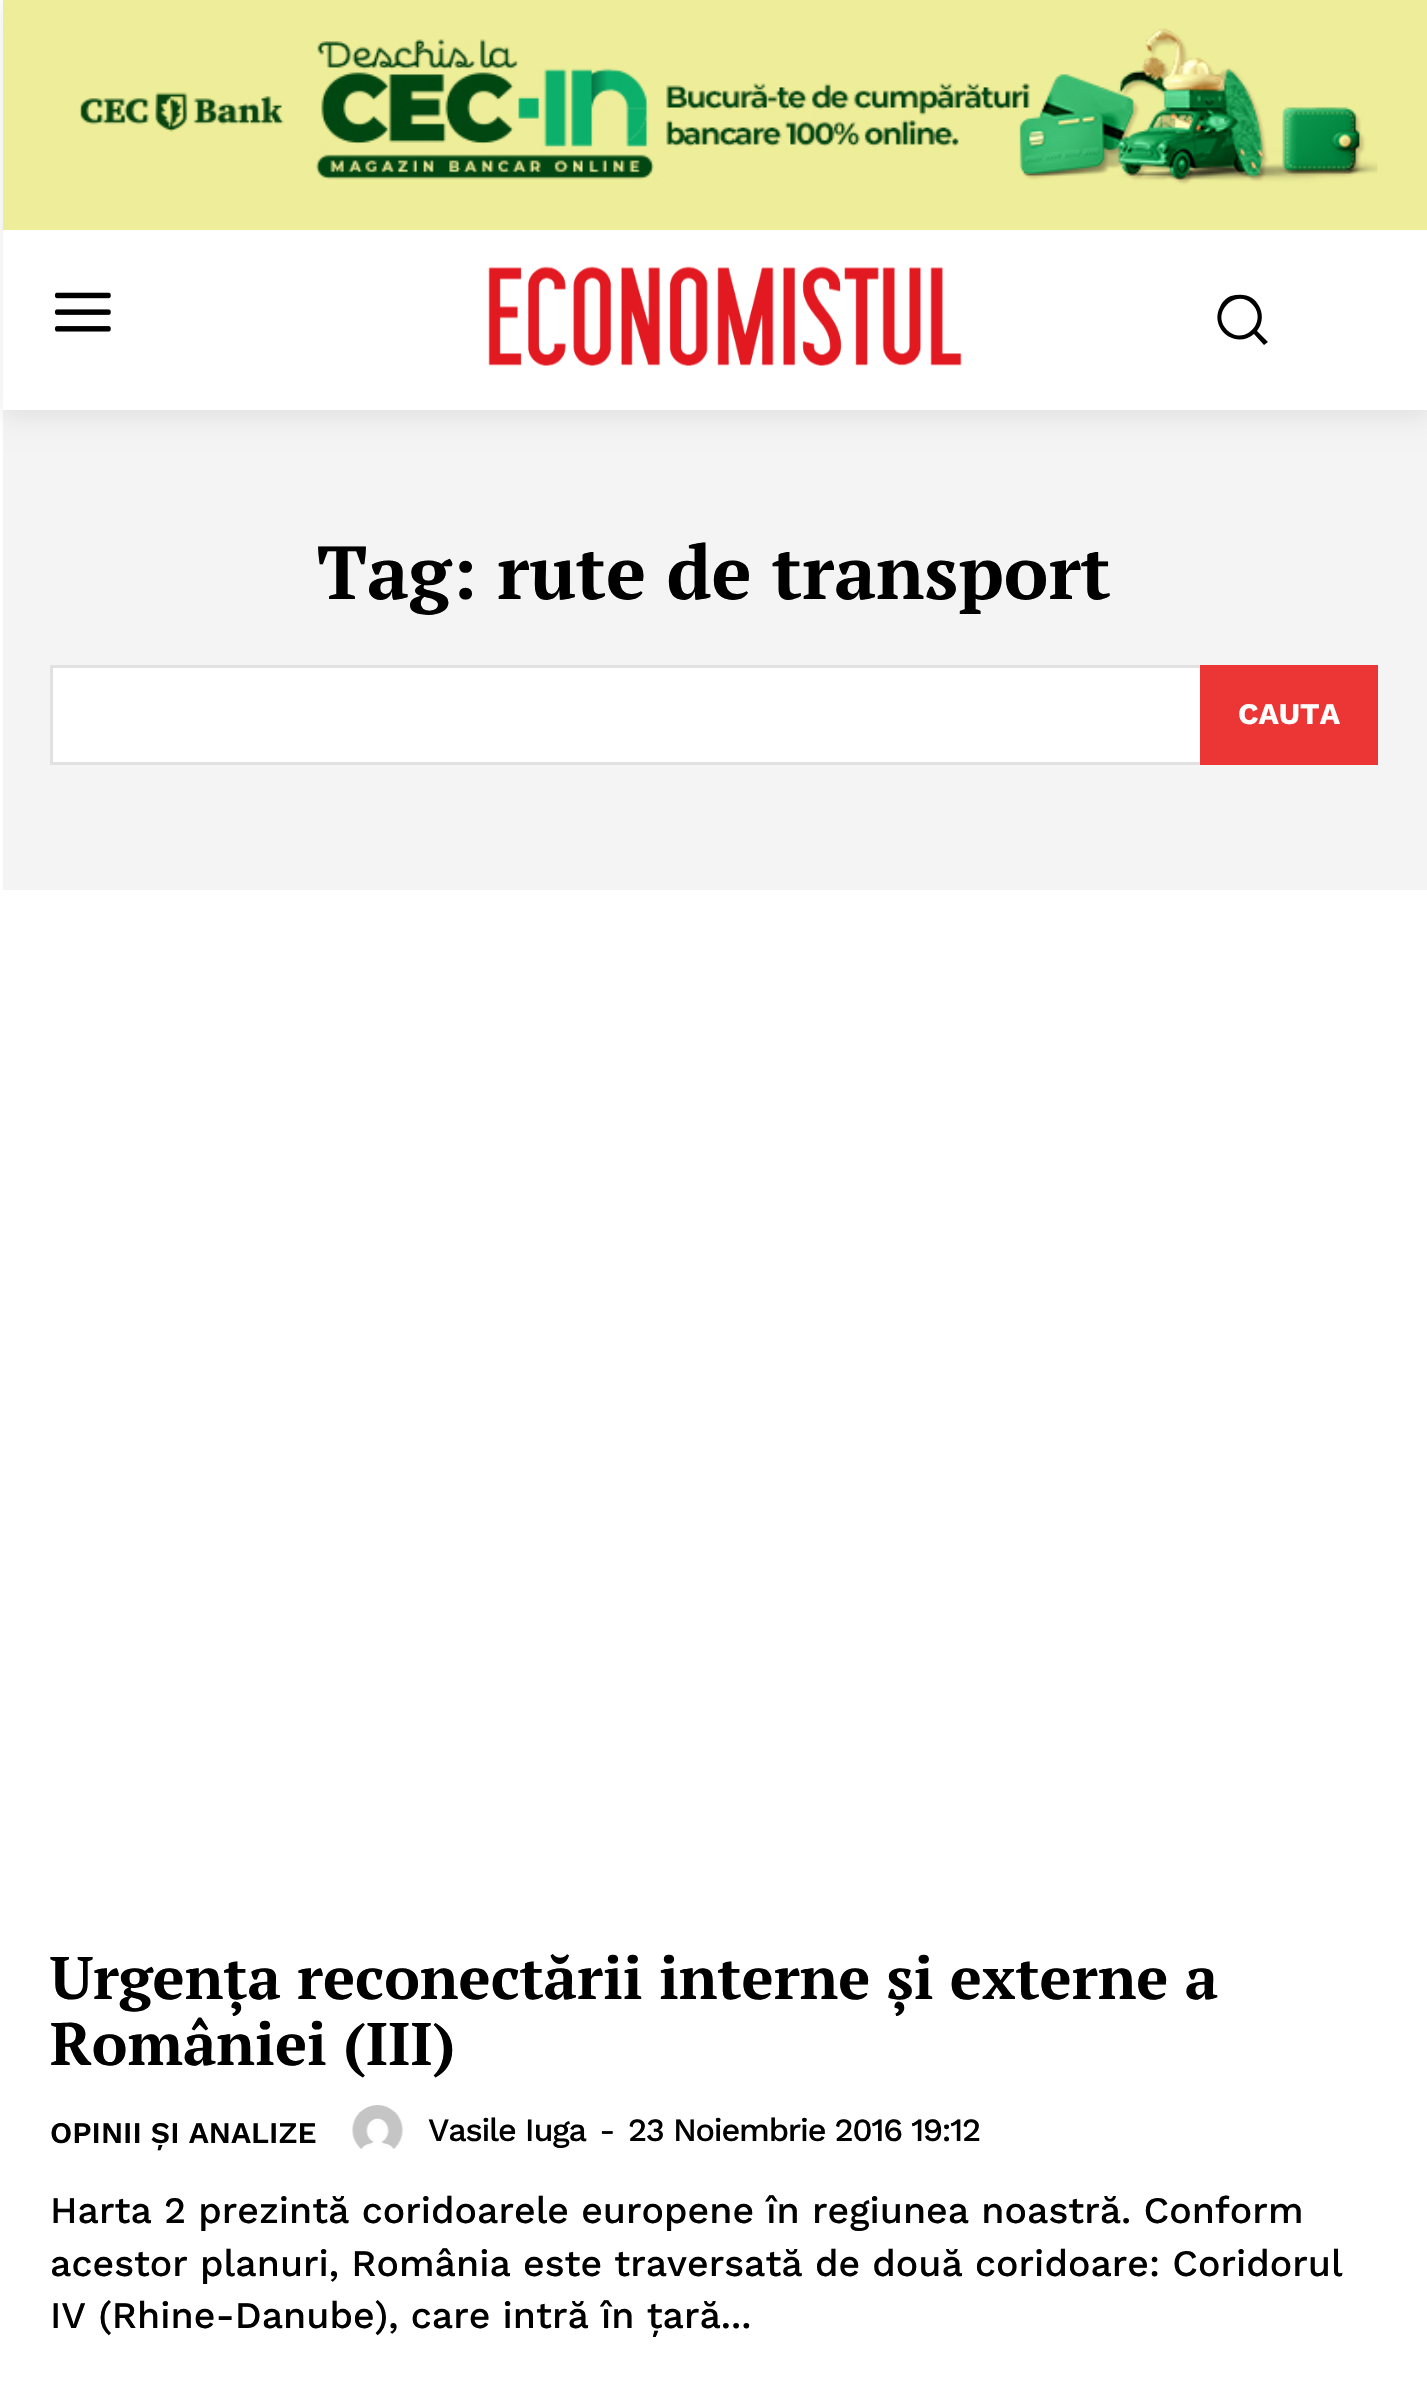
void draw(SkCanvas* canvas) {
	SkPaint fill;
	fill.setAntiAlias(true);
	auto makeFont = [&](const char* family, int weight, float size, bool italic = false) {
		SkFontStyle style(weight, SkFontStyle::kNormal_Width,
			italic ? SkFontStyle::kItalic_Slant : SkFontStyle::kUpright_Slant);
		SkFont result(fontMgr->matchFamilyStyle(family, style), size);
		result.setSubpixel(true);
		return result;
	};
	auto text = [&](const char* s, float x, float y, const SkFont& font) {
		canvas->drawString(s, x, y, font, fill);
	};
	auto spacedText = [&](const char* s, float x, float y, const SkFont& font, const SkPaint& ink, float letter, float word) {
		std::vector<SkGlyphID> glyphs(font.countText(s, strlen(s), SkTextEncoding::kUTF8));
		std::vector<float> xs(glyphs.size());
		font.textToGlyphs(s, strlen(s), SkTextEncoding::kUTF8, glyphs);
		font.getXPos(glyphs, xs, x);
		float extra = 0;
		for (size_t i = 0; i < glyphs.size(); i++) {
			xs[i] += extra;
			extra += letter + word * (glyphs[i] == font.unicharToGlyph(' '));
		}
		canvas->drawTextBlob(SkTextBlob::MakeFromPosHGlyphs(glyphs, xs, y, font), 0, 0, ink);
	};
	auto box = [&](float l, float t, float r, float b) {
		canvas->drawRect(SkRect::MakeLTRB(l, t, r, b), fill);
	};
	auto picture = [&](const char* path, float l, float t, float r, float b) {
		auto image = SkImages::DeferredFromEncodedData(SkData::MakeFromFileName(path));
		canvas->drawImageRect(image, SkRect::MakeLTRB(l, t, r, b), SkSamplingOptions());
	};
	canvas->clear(0xFFFFFFFF);
	fill.setColor(0xFFEEED9A);
	box(3, 0, 1427, 230);
	picture("image0.png", 79, 28, 1378, 185);
	picture("image1.png", 55, 292, 111, 332);
	picture("image2.png", 488, 266, 962, 366);
	fill.setColor(0xFF000000);
	canvas->drawPath(SkPathBuilder().moveTo(1268, 342).lineTo(1257, 331).cubicTo(1265, 321, 1263, 306, 1252, 298).cubicTo(1246, 294, 1238, 294, 1231, 296).cubicTo(1226, 298, 1222, 302, 1220, 307).cubicTo(1209, 328, 1235, 350, 1254, 334).lineTo(1264, 345).close().moveTo(1227, 330).cubicTo(1210, 313, 1236, 288, 1252, 304).cubicTo(1269, 321, 1244, 347, 1227, 330).close().detach(), fill);
	fill.setColor(0xFFF4F4F4);
	box(3, 410, 1427, 890);
	canvas->save();
	canvas->clipPath(SkPathBuilder(SkPathFillType::kEvenOdd).moveTo(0, 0).lineTo(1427, 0).lineTo(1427, 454).lineTo(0, 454).close().moveTo(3, 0).lineTo(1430, 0).lineTo(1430, 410).lineTo(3, 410).close().detach(), true);
	fill.setColor(0x17000000);
	fill.setMaskFilter(SkMaskFilter::MakeBlur(kNormal_SkBlurStyle, 12.5f));
	canvas->drawRect(SkRect::MakeLTRB(3, 5, 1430, 415), fill);
	fill.setMaskFilter(nullptr);
	canvas->restore();
	fill.setColor(0xFFFFFFFF);
	box(53, 668, 1200, 762);
	fill.setStyle(SkPaint::kStroke_Style);
	fill.setStrokeWidth(3);
	fill.setColor(0xFFE1E1E1);
	canvas->drawRect(SkRect::MakeLTRB(51.5f, 666.5f, 1376.5f, 763.5f), fill);
	fill.setStyle(SkPaint::kFill_Style);
	fill.setColor(0xFFEC3535);
	box(1200, 665, 1378, 765);
	picture("image3.png", 352, 2105, 403, 2149);
	auto font1 = makeFont("PT Serif", 700, 75);
	fill.setColor(0xFF000000);
	text("Tag: rute de transport", 317, 599, font1);
	auto font2 = makeFont("Work Sans", 700, 30);
	fill.setColor(0xFFFFFFFF);
	text("CAUTA", 1238, 724, font2);
	auto font3 = makeFont("PT Serif", 700, 60);
	fill.setColor(0xFF000000);
	text("Urgența reconectării interne și externe a", 50, 1999, font3);
	text("României (III)", 50, 2065, font3);
	auto font4 = makeFont("Work Sans", 600, 30);
	text("OPINII ȘI ANALIZE", 50, 2143, font4);
	auto font5 = makeFont("Work Sans", 500, 32.5f);
	spacedText("Vasile Iuga", 428, 2141, font5, fill, -1.25f, 0);
	auto font6 = makeFont("Work Sans", 400, 32.5f);
	spacedText("-", 599, 2141, font6, fill, -1.25f, 0);
	spacedText("23 Noiembrie 2016 19:12", 628, 2141, font5, fill, -1.25f, 0);
	auto font7 = makeFont("Work Sans", 500, 37.5f);
	text("Harta 2 prezintă coridoarele europene în regiunea noastră. Conform", 50, 2223, font7);
	text("acestor planuri, România este traversată de două coridoare: Coridorul", 50, 2276, font7);
	text("IV (Rhine-Danube), care intră în țară...", 50, 2328, font7);
}
